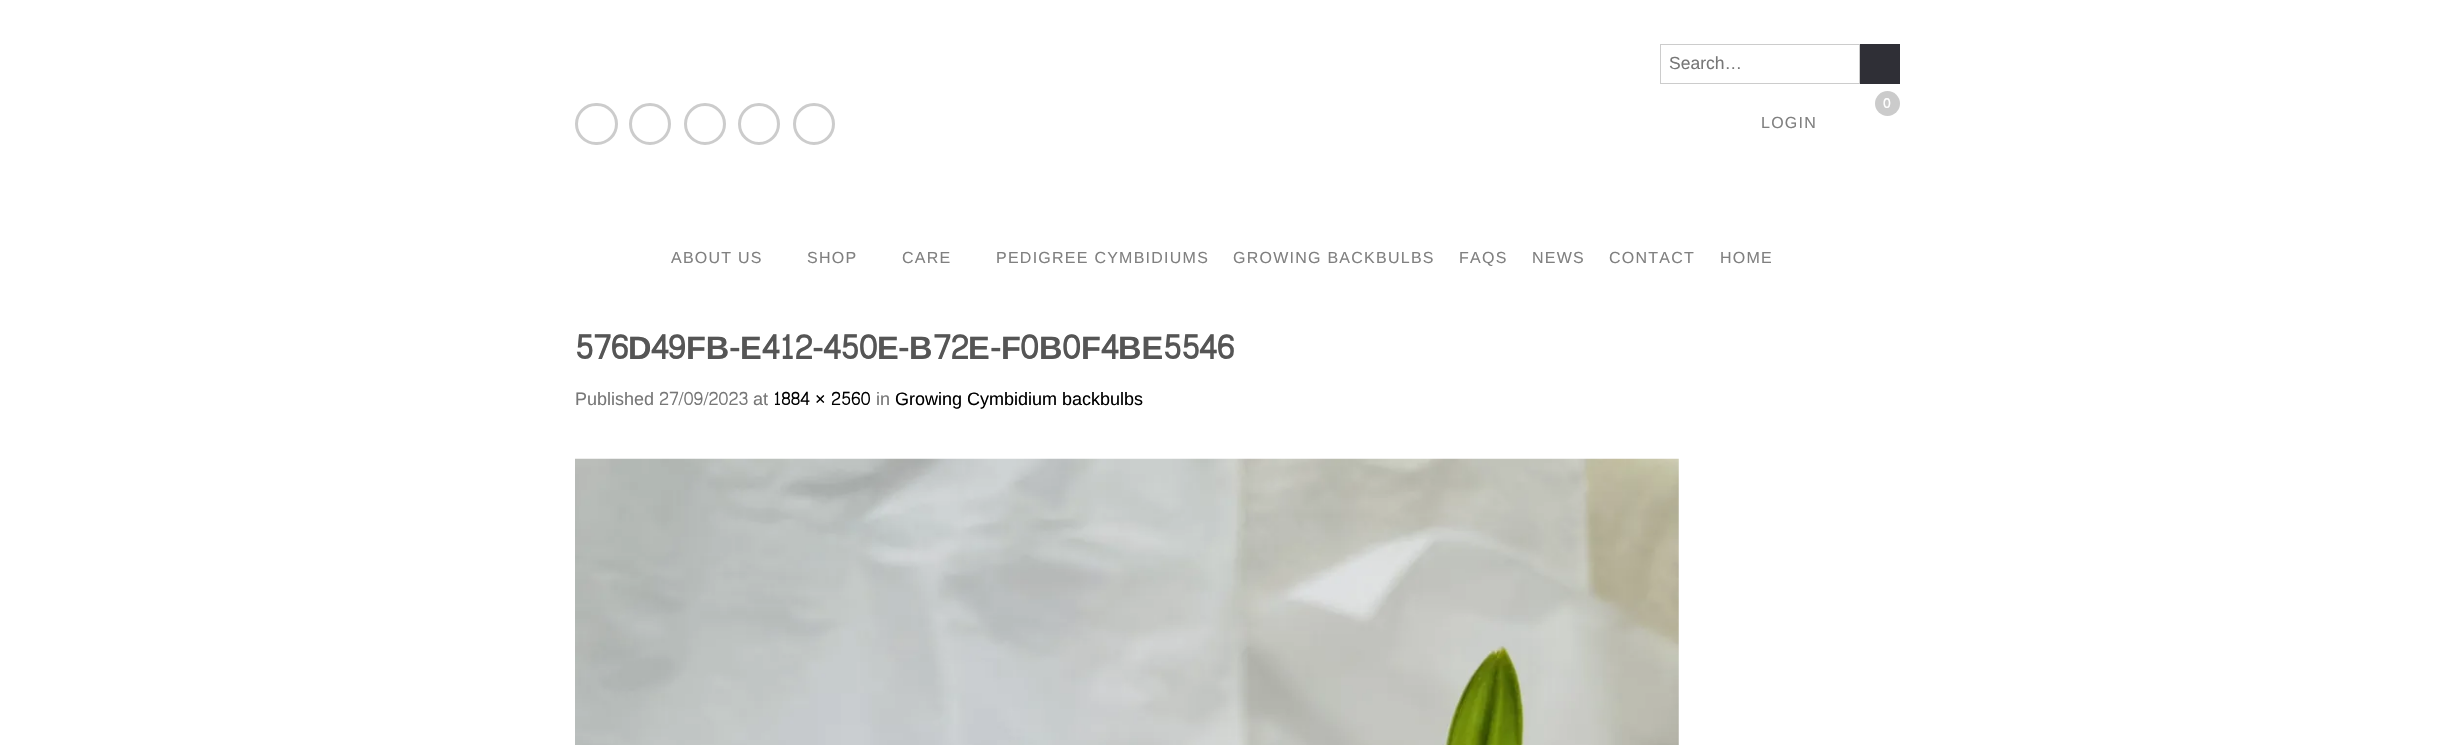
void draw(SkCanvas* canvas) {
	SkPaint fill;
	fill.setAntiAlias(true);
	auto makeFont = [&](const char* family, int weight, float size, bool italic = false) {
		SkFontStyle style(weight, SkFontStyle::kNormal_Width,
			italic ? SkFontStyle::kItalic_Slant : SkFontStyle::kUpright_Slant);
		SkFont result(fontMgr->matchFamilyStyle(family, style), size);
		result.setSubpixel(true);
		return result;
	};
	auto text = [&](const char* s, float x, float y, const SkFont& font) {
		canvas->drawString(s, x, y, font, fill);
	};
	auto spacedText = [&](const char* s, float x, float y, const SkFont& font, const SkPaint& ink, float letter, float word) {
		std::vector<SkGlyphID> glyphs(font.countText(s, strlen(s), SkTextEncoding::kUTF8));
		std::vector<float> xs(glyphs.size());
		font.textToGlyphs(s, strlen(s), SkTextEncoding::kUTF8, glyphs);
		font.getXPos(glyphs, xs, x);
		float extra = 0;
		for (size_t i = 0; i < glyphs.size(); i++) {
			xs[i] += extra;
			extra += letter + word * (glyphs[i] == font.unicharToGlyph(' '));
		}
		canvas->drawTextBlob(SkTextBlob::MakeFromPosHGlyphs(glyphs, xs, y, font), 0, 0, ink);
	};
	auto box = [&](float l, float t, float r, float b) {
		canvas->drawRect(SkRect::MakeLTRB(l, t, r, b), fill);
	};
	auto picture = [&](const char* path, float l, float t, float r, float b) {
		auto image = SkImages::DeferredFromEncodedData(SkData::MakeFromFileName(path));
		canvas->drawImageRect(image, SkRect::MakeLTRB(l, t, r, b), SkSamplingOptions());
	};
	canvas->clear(0xFFFFFFFF);
	fill.setStyle(SkPaint::kStroke_Style);
	fill.setStrokeWidth(3);
	fill.setColor(0xFFCCCCCC);
	canvas->drawRoundRect(SkRect::MakeLTRB(576.5f, 104.5f, 616.5f, 143.5f), 19.5f, 19.5f, fill);
	canvas->drawCircle(650, 124, 19.5f, fill);
	canvas->drawCircle(705, 124, 19.5f, fill);
	canvas->drawCircle(759, 124, 19.5f, fill);
	canvas->drawCircle(814, 124, 19.5f, fill);
	fill.setStrokeWidth(1);
	canvas->drawRect(SkRect::MakeLTRB(1660.5f, 44.5f, 1859.5f, 83.5f), fill);
	fill.setStyle(SkPaint::kFill_Style);
	fill.setColor(0xFF2F2F36);
	box(1860, 44, 1900, 84);
	fill.setColor(0xFFCBCBCB);
	canvas->drawCircle(1887.5f, 103.5f, 12.5f, fill);
	picture("image0.png", 575, 458, 1679, 745);
	auto font1 = makeFont("Liberation Sans", 400, 17.5f);
	fill.setColor(0xFF777777);
	text("Search…", 1669, 69, font1);
	auto font2 = makeFont("Chenla", 700, 13);
	fill.setColor(0xFFFFFFFF);
	spacedText("0", 1883, 108, font2, fill, 1.25f, 0);
	auto font3 = makeFont("Liberation Sans", 400, 16);
	fill.setColor(0xFF808080);
	spacedText("LOGIN", 1761, 128, font3, fill, 1.25f, 0);
	spacedText("ABOUT US", 671, 263, font3, fill, 1.25f, 0);
	spacedText("SHOP", 807, 263, font3, fill, 1.25f, 0);
	spacedText("CARE", 902, 263, font3, fill, 1.25f, 0);
	spacedText("PEDIGREE CYMBIDIUMS", 996, 263, font3, fill, 1.25f, 0);
	spacedText("GROWING BACKBULBS", 1233, 263, font3, fill, 1.25f, 0);
	spacedText("FAQS", 1459, 263, font3, fill, 1.25f, 0);
	spacedText("NEWS", 1532, 263, font3, fill, 1.25f, 0);
	spacedText("CONTACT", 1609, 263, font3, fill, 1.25f, 0);
	spacedText("HOME", 1720, 263, font3, fill, 1.25f, 0);
	auto font4 = makeFont("Chenla", 700, 32.5f);
	fill.setColor(0xFF555555);
	text("576", 575, 359, font4);
	auto font5 = makeFont("Liberation Sans", 700, 32.5f);
	text("D", 628, 359, font5);
	text("49", 651, 359, font4);
	text("FB", 686, 359, font5);
	text("-", 729, 359, font4);
	text("E", 740, 359, font5);
	text("412-450", 762, 359, font4);
	text("E", 877, 359, font5);
	text("-", 898, 359, font4);
	text("B", 909, 359, font5);
	text("72", 933, 359, font4);
	text("E", 968, 359, font5);
	text("-", 990, 359, font4);
	text("F", 1001, 359, font5);
	text("0", 1020, 359, font4);
	text("B", 1039, 359, font5);
	text("0", 1062, 359, font4);
	text("F", 1081, 359, font5);
	text("4", 1101, 359, font4);
	text("BE", 1118, 359, font5);
	text("5546", 1163, 359, font4);
	auto font6 = makeFont("Liberation Sans", 400, 18);
	fill.setColor(0xFF777777);
	text("Published", 575, 405, font6);
	auto font7 = makeFont("Chenla", 400, 18);
	text("27/09/2023", 659, 405, font7);
	text("at", 753, 405, font6);
	fill.setColor(0xFF000000);
	text("1884", 773, 405, font7);
	text("×", 815, 405, font6);
	text("2560", 831, 405, font7);
	fill.setColor(0xFF777777);
	text("in", 876, 405, font6);
	fill.setColor(0xFF000000);
	text("Growing Cymbidium backbulbs", 895, 405, font6);
}
